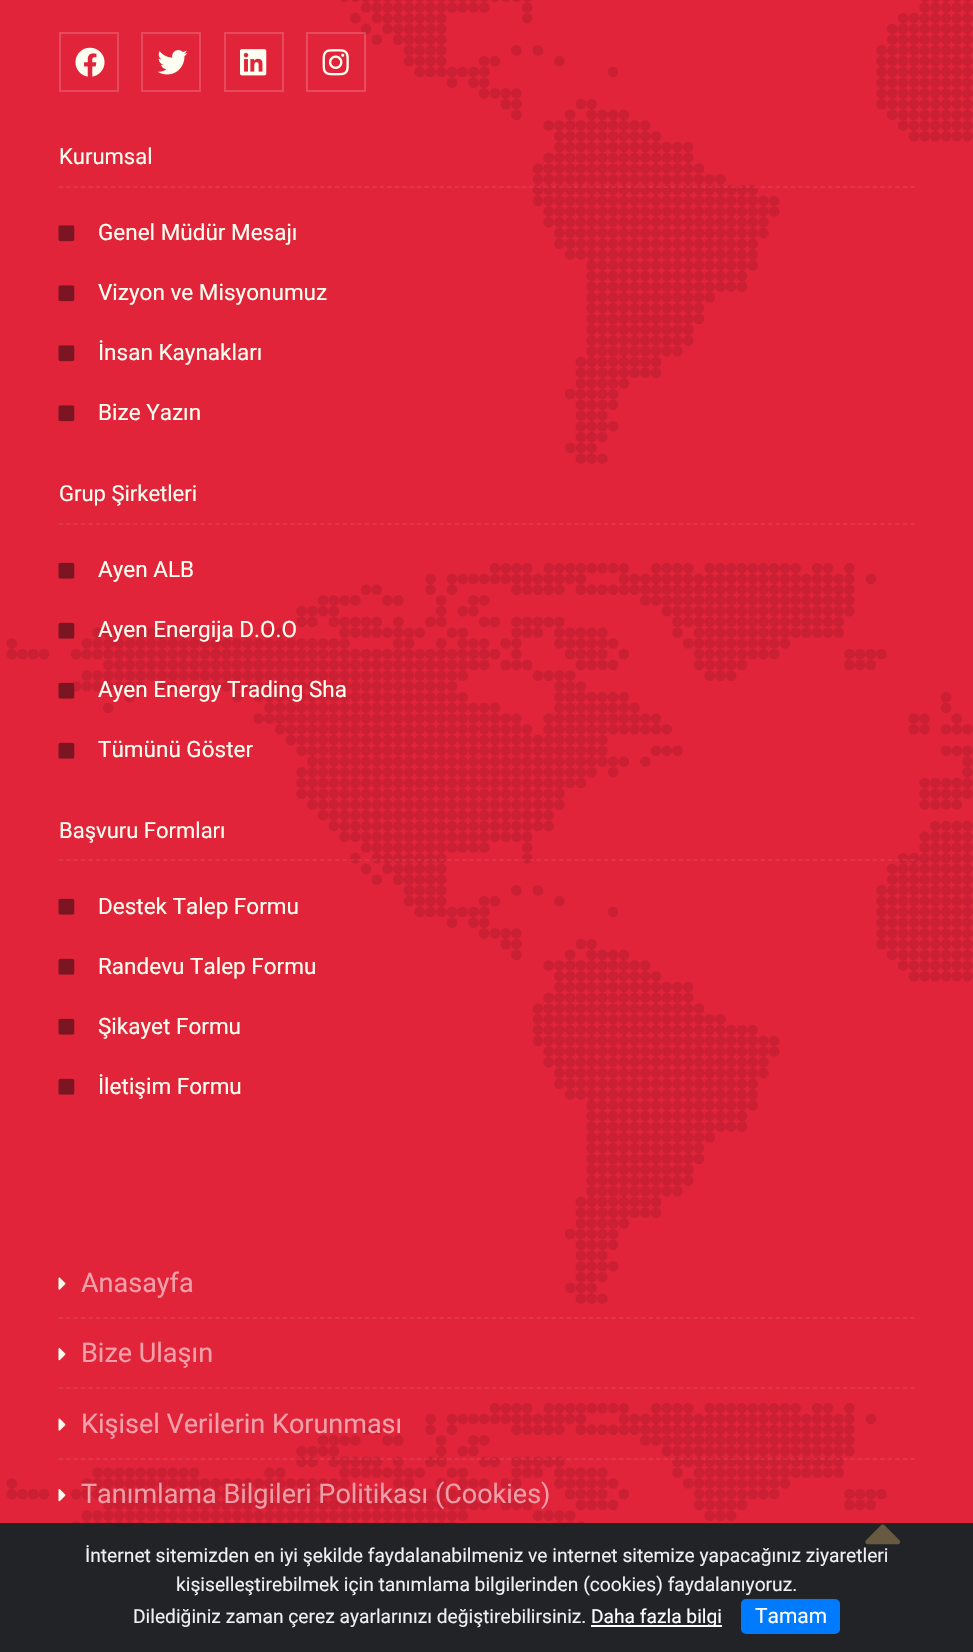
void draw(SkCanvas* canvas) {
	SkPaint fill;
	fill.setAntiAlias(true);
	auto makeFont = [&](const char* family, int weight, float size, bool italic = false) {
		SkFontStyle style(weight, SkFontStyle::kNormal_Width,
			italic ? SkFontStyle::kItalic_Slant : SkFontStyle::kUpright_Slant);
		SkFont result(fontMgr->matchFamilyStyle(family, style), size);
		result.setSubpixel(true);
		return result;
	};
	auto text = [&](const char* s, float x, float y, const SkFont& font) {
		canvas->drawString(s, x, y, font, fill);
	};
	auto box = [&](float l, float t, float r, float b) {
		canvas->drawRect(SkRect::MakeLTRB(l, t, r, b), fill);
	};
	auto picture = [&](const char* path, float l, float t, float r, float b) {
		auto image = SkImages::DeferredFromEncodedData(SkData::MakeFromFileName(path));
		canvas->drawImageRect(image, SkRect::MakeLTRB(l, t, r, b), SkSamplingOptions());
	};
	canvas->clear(0xFFE1243A);
	picture("image0.png", 6, 0, 973, 1523);
	fill.setStyle(SkPaint::kStroke_Style);
	fill.setStrokeWidth(2);
	fill.setColor(0xFFE64B5D);
	canvas->drawRect(SkRect::MakeLTRB(60, 33, 118, 91), fill);
	picture("image1.png", 75, 47, 105, 77);
	canvas->drawRect(SkRect::MakeLTRB(142, 33, 200, 91), fill);
	picture("image2.png", 157, 50, 188, 75);
	canvas->drawRect(SkRect::MakeLTRB(225, 33, 283, 91), fill);
	picture("image3.png", 240, 49, 267, 76);
	fill.setColor(0x2EFFFFFF);
	canvas->drawRect(SkRect::MakeLTRB(307, 33, 365, 91), fill);
	picture("image4.png", 322, 49, 349, 76);
	fill.setStrokeWidth(1.5f);
	fill.setColor(0x1AFFFFFF);
	fill.setPathEffect(SkDashPathEffect::Make({{4.5f, 2.97f}}, 0));
	canvas->drawPath(SkPathBuilder().moveTo(58.5f, 187).lineTo(915, 187).detach(), fill);
	fill.setPathEffect(nullptr);
	picture("image5.png", 58, 225, 75, 242);
	picture("image5.png", 58, 285, 75, 302);
	picture("image5.png", 58, 345, 75, 362);
	picture("image5.png", 58, 405, 75, 422);
	fill.setColor(0xFFE43A4E);
	fill.setPathEffect(SkDashPathEffect::Make({{4.5f, 2.97f}}, 0));
	canvas->drawPath(SkPathBuilder().moveTo(58.5f, 524).lineTo(915, 524).detach(), fill);
	fill.setPathEffect(nullptr);
	picture("image6.png", 58, 562, 75, 579);
	picture("image6.png", 58, 622, 75, 639);
	picture("image7.png", 58, 682, 75, 699);
	picture("image6.png", 58, 742, 75, 759);
	fill.setColor(0x1AFFFFFF);
	fill.setPathEffect(SkDashPathEffect::Make({{4.5f, 2.97f}}, 0));
	canvas->drawPath(SkPathBuilder().moveTo(58.5f, 860).lineTo(915, 860).detach(), fill);
	fill.setPathEffect(nullptr);
	picture("image6.png", 58, 898, 75, 915);
	picture("image6.png", 58, 958, 75, 975);
	picture("image6.png", 58, 1018, 75, 1035);
	picture("image6.png", 58, 1078, 75, 1095);
	fill.setColor(0xFFE43A4E);
	fill.setPathEffect(SkDashPathEffect::Make({{4.5f, 2.97f}}, 0));
	canvas->drawPath(SkPathBuilder().moveTo(58.5f, 1318).lineTo(915, 1318).detach(), fill);
	fill.setPathEffect(nullptr);
	picture("image8.png", 58, 1277, 66, 1290);
	fill.setPathEffect(SkDashPathEffect::Make({{4.5f, 2.97f}}, 0));
	canvas->drawPath(SkPathBuilder().moveTo(58.5f, 1388).lineTo(915, 1388).detach(), fill);
	fill.setPathEffect(nullptr);
	picture("image9.png", 58, 1348, 66, 1361);
	fill.setColor(0x1AFFFFFF);
	fill.setPathEffect(SkDashPathEffect::Make({{4.5f, 2.97f}}, 0));
	canvas->drawPath(SkPathBuilder().moveTo(58.5f, 1459).lineTo(915, 1459).detach(), fill);
	fill.setPathEffect(nullptr);
	picture("image8.png", 58, 1418, 66, 1431);
	picture("image9.png", 58, 1489, 66, 1502);
	fill.setStyle(SkPaint::kFill_Style);
	fill.setColor(0xFF212327);
	box(0, 1523, 973, 1652);
	picture("image10.png", 865, 1524, 901, 1545);
	fill.setColor(0xFFFFFFFF);
	box(591, 1625, 722, 1627);
	fill.setColor(0xFF007BFF);
	canvas->drawRoundRect(SkRect::MakeLTRB(742, 1600, 839, 1633), 4, 4, fill);
	fill.setStyle(SkPaint::kStroke_Style);
	fill.setStrokeWidth(2);
	canvas->drawRoundRect(SkRect::MakeLTRB(742, 1600, 839, 1633), 4, 4, fill);
	auto font1 = makeFont("Roboto", 400, 22);
	fill.setStyle(SkPaint::kFill_Style);
	fill.setColor(0xFFFFFFF1);
	text("Kurumsal", 59, 164, font1);
	auto font2 = makeFont("Roboto", 400, 22.5f);
	text("Genel Müdür Mesajı", 98, 240, font2);
	text("Vizyon ve Misyonumuz", 98, 300, font2);
	text("İnsan Kaynakları", 98, 360, font2);
	text("Bize Yazın", 98, 420, font2);
	text("Grup Şirketleri", 59, 501, font1);
	text("Ayen ALB", 98, 577, font2);
	text("Ayen Energija D.O.O", 98, 637, font2);
	text("Ayen Energy Trading Sha", 98, 697, font2);
	text("Tümünü Göster", 98, 757, font2);
	text("Başvuru Formları", 59, 838, font1);
	text("Destek Talep Formu", 98, 914, font2);
	text("Randevu Talep Formu", 98, 974, font2);
	text("Şikayet Formu", 98, 1034, font2);
	text("İletişim Formu", 98, 1094, font2);
	auto font3 = makeFont("Roboto", 400, 27);
	fill.setColor(0xFFF2A0A9);
	text("Anasayfa", 81, 1292, font3);
	text("Bize Ulaşın", 81, 1362, font3);
	text("Kişisel Verilerin Korunması", 81, 1433, font3);
	fill.setColor(0xFFEC9FA7);
	text("Tanımlama Bilgileri Politikası (Cookies)", 81, 1503, font3);
	auto font4 = makeFont("Roboto", 400, 19.2f);
	fill.setColor(0xFFECF0F1);
	text("İnternet sitemizden en iyi şekilde faydalanabilmeniz ve internet sitemize yapacağınız ziyaretleri", 85, 1562, font4);
	text("kişiselleştirebilmek için tanımlama bilgilerinden (cookies) faydalanıyoruz.", 176, 1591, font4);
	text("Dilediğiniz zaman çerez ayarlarınızı değiştirebilirsiniz.", 133, 1623, font4);
	fill.setColor(0xFFFFFFFF);
	text("Daha fazla bilgi", 591, 1623, font4);
	auto font5 = makeFont("Roboto", 400, 21);
	text("Tamam", 755, 1623, font5);
}
